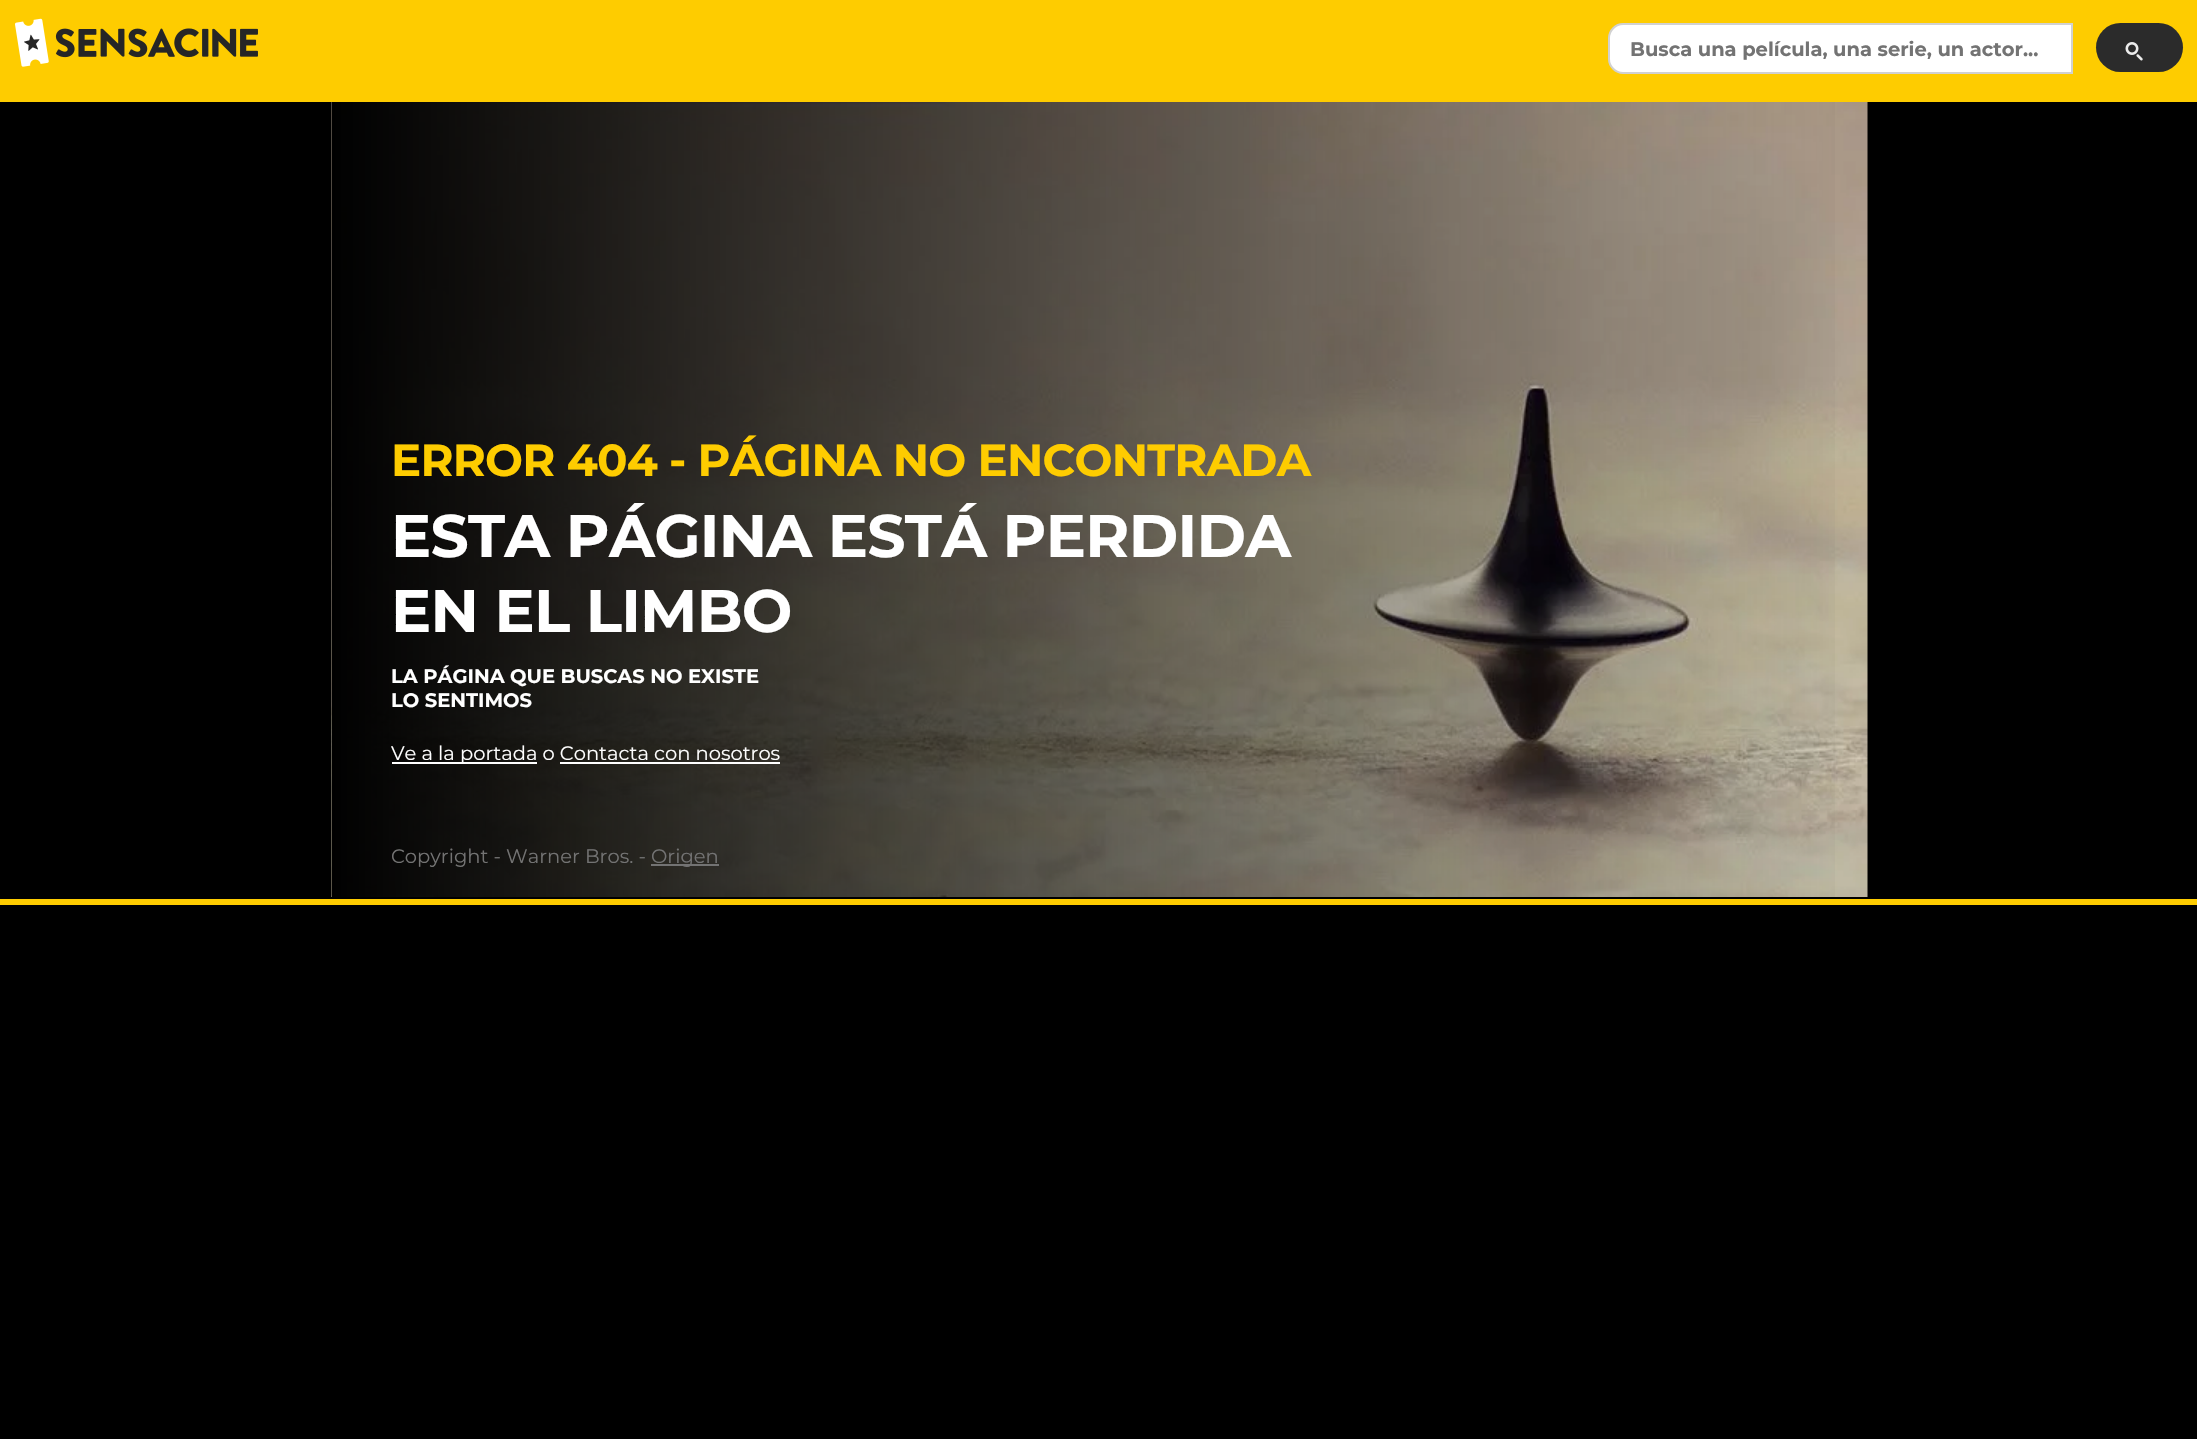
void draw(SkCanvas* canvas) {
	SkPaint fill;
	fill.setAntiAlias(true);
	auto makeFont = [&](const char* family, int weight, float size, bool italic = false) {
		SkFontStyle style(weight, SkFontStyle::kNormal_Width,
			italic ? SkFontStyle::kItalic_Slant : SkFontStyle::kUpright_Slant);
		SkFont result(fontMgr->matchFamilyStyle(family, style), size);
		result.setSubpixel(true);
		return result;
	};
	auto text = [&](const char* s, float x, float y, const SkFont& font) {
		canvas->drawString(s, x, y, font, fill);
	};
	auto spacedText = [&](const char* s, float x, float y, const SkFont& font, const SkPaint& ink, float letter, float word) {
		std::vector<SkGlyphID> glyphs(font.countText(s, strlen(s), SkTextEncoding::kUTF8));
		std::vector<float> xs(glyphs.size());
		font.textToGlyphs(s, strlen(s), SkTextEncoding::kUTF8, glyphs);
		font.getXPos(glyphs, xs, x);
		float extra = 0;
		for (size_t i = 0; i < glyphs.size(); i++) {
			xs[i] += extra;
			extra += letter + word * (glyphs[i] == font.unicharToGlyph(' '));
		}
		canvas->drawTextBlob(SkTextBlob::MakeFromPosHGlyphs(glyphs, xs, y, font), 0, 0, ink);
	};
	auto box = [&](float l, float t, float r, float b) {
		canvas->drawRect(SkRect::MakeLTRB(l, t, r, b), fill);
	};
	auto roundBox = [&](float l, float t, float r, float b, float radius) {
		canvas->drawRoundRect(SkRect::MakeLTRB(l, t, r, b), radius, radius, fill);
	};
	auto picture = [&](const char* path, float l, float t, float r, float b) {
		auto image = SkImages::DeferredFromEncodedData(SkData::MakeFromFileName(path));
		canvas->drawImageRect(image, SkRect::MakeLTRB(l, t, r, b), SkSamplingOptions());
	};
	canvas->clear(0xFF000000);
	fill.setColor(0xFFFECC00);
	box(0, 0, 2197, 102);
	picture("image0.png", 15, 18, 258, 67);
	fill.setColor(0xFFFFFFFF);
	canvas->drawPath(SkPathBuilder().moveTo(1623, 24).lineTo(2072, 24).lineTo(2072, 73).lineTo(1623, 73).cubicTo(1615.5f, 73, 1609, 66.5f, 1609, 59).lineTo(1609, 38).cubicTo(1609, 30.5f, 1615.5f, 24, 1623, 24).close().detach(), fill);
	fill.setStyle(SkPaint::kStroke_Style);
	fill.setStrokeWidth(2);
	fill.setColor(0xFFD1D1D1);
	canvas->drawPath(SkPathBuilder().moveTo(1623, 24).lineTo(2072, 24).lineTo(2072, 73).lineTo(1623, 73).cubicTo(1615.5f, 73, 1609, 66.5f, 1609, 59).lineTo(1609, 38).cubicTo(1609, 30.5f, 1615.5f, 24, 1623, 24).close().detach(), fill);
	fill.setStyle(SkPaint::kFill_Style);
	fill.setColor(0xFF2B2B2B);
	roundBox(2096, 23, 2183, 72, 24.5f);
	picture("image1.png", 2125, 42, 2143, 61);
	picture("image2.png", 331, 102, 1868, 897);
	{
		const SkColor colors[] = {0xFF000000, 0x00000000};
		const float stops[] = {0, 1};
		const SkPoint ends[] = {{332, 500}, {1868, 499}};
		fill.setShader(SkGradientShader::MakeLinear(ends, colors, stops, 2, SkTileMode::kClamp));
		fill.setAlpha(255);
	}
	box(332, 102, 1835, 897);
	fill.setShader(nullptr);
	fill.setColor(0xFFFFFFFF);
	box(392, 762, 537, 764);
	box(560, 762, 780, 764);
	fill.setColor(0xFF737373);
	box(651, 864, 719, 866);
	fill.setColor(0xFFFECC00);
	box(0, 899, 2197, 905);
	auto font1 = makeFont("Montserrat", 700, 19.5f);
	fill.setColor(0xFF737373);
	text("Busca una película, una serie, un actor...", 1630, 56, font1);
	auto font2 = makeFont("Montserrat", 700, 45);
	fill.setColor(0xFFFECC00);
	spacedText("ERROR 404 - PÁGINA NO ENCONTRADA", 391, 476, font2, fill, -0.75f, 0);
	auto font3 = makeFont("Montserrat", 700, 60);
	fill.setColor(0xFFFFFFFF);
	spacedText("ESTA PÁGINA ESTÁ PERDIDA", 391, 557, font3, fill, -0.75f, 0);
	spacedText("EN EL LIMBO", 391, 632, font3, fill, -0.75f, 0);
	text("LA PÁGINA QUE BUSCAS NO EXISTE", 391, 683, font1);
	text("LO SENTIMOS", 391, 707, font1);
	auto font4 = makeFont("Montserrat", 400, 19.5f);
	text("Ve a la portada o Contacta con nosotros", 391, 760, font4);
	fill.setColor(0xFF737373);
	text("Copyright - Warner Bros. -", 391, 863, font4);
	text("Origen", 651, 863, font4);
}
